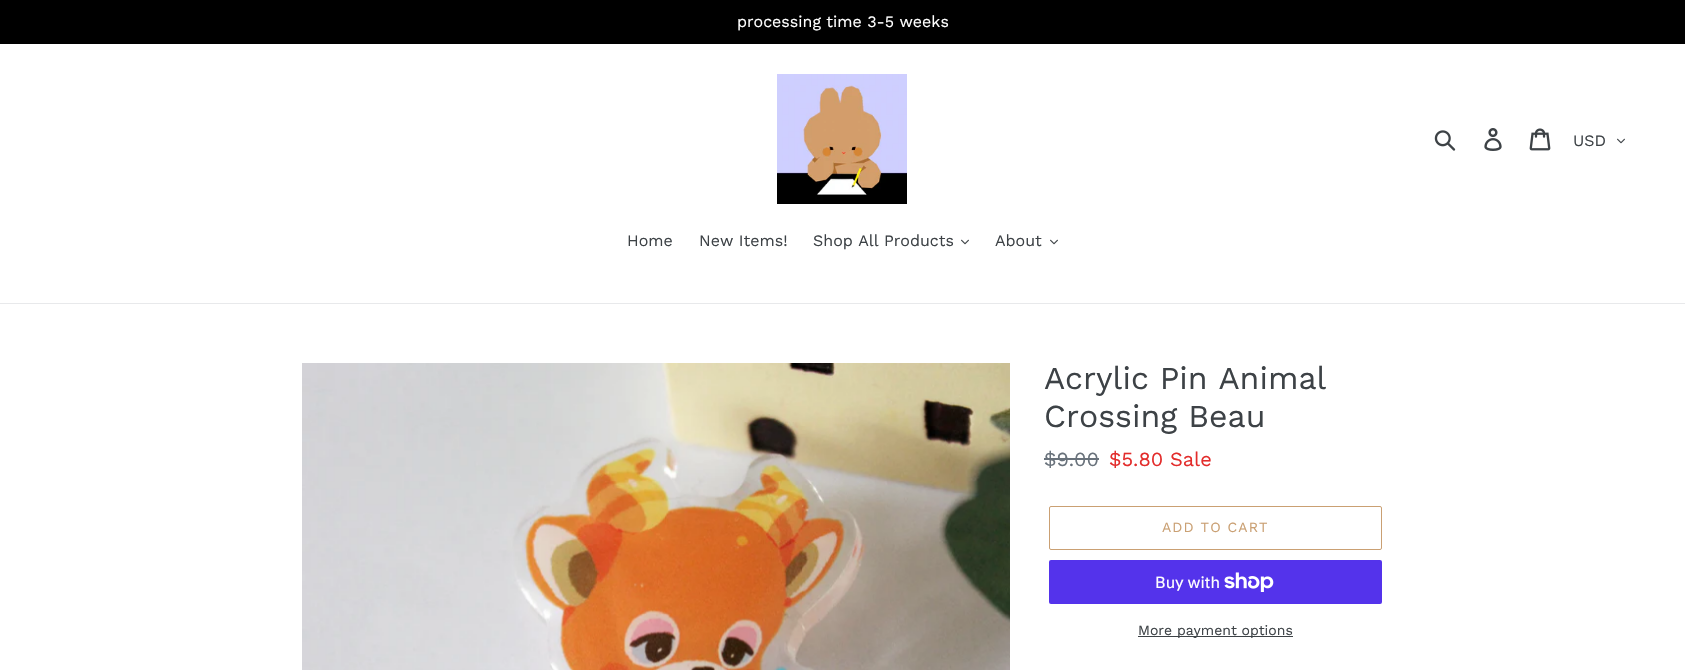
void draw(SkCanvas* canvas) {
	SkPaint fill;
	fill.setAntiAlias(true);
	auto makeFont = [&](const char* family, int weight, float size, bool italic = false) {
		SkFontStyle style(weight, SkFontStyle::kNormal_Width,
			italic ? SkFontStyle::kItalic_Slant : SkFontStyle::kUpright_Slant);
		SkFont result(fontMgr->matchFamilyStyle(family, style), size);
		result.setSubpixel(true);
		return result;
	};
	auto text = [&](const char* s, float x, float y, const SkFont& font) {
		canvas->drawString(s, x, y, font, fill);
	};
	auto spacedText = [&](const char* s, float x, float y, const SkFont& font, const SkPaint& ink, float letter, float word) {
		std::vector<SkGlyphID> glyphs(font.countText(s, strlen(s), SkTextEncoding::kUTF8));
		std::vector<float> xs(glyphs.size());
		font.textToGlyphs(s, strlen(s), SkTextEncoding::kUTF8, glyphs);
		font.getXPos(glyphs, xs, x);
		float extra = 0;
		for (size_t i = 0; i < glyphs.size(); i++) {
			xs[i] += extra;
			extra += letter + word * (glyphs[i] == font.unicharToGlyph(' '));
		}
		canvas->drawTextBlob(SkTextBlob::MakeFromPosHGlyphs(glyphs, xs, y, font), 0, 0, ink);
	};
	auto box = [&](float l, float t, float r, float b) {
		canvas->drawRect(SkRect::MakeLTRB(l, t, r, b), fill);
	};
	auto roundBox = [&](float l, float t, float r, float b, float radius) {
		canvas->drawRoundRect(SkRect::MakeLTRB(l, t, r, b), radius, radius, fill);
	};
	auto picture = [&](const char* path, float l, float t, float r, float b) {
		auto image = SkImages::DeferredFromEncodedData(SkData::MakeFromFileName(path));
		canvas->drawImageRect(image, SkRect::MakeLTRB(l, t, r, b), SkSamplingOptions());
	};
	canvas->clear(0xFFFFFFFF);
	fill.setColor(0xFF000000);
	box(0, 0, 1685, 44);
	picture("image0.png", 777, 74, 907, 204);
	picture("image1.png", 1434, 130, 1456, 151);
	picture("image2.png", 1484, 128, 1502, 151);
	picture("image3.png", 1529, 128, 1551, 151);
	picture("image4.png", 1617, 138, 1625, 144);
	fill.setColor(0xFFE8E9EB);
	box(0, 303, 1685, 304);
	picture("image4.png", 961, 239, 969, 245);
	picture("image4.png", 1050, 239, 1058, 245);
	picture("image5.png", 302, 363, 1010, 670);
	fill.setColor(0xFF69727B);
	box(1044, 458, 1099, 460);
	fill.setStyle(SkPaint::kStroke_Style);
	fill.setStrokeWidth(1);
	fill.setColor(0xFFCAA073);
	canvas->drawRoundRect(SkRect::MakeLTRB(1049.5f, 506.5f, 1381.5f, 549.5f), 1.5f, 1.5f, fill);
	fill.setStyle(SkPaint::kFill_Style);
	fill.setColor(0xFF5433EB);
	roundBox(1049, 560, 1382, 604, 2);
	picture("image6.png", 1224, 572, 1274, 592);
	fill.setColor(0xFF3D4246);
	box(1138, 636, 1293, 637);
	auto font1 = makeFont("Work Sans", 400, 16);
	fill.setColor(0xFFFFFFFF);
	text("processing time 3-5 weeks", 737, 27, font1);
	fill.setColor(0xFF3D4246);
	text("USD", 1573, 146, font1);
	text("Home", 627, 246, font1);
	text("New Items!", 699, 246, font1);
	text("Shop All Products", 813, 246, font1);
	text("About", 995, 246, font1);
	auto font2 = makeFont("Work Sans", 400, 32);
	text("Acrylic Pin Animal", 1044, 389, font2);
	text("Crossing Beau", 1044, 427, font2);
	auto font3 = makeFont("Work Sans", 400, 20);
	fill.setColor(0xFF69727B);
	text("$9.00", 1044, 466, font3);
	fill.setColor(0xFFE32C2B);
	text("$5.80 Sale", 1109, 466, font3);
	auto font4 = makeFont("Work Sans", 400, 14);
	fill.setColor(0xFFCAA073);
	spacedText("ADD TO CART", 1162, 532, font4, fill, 1.1f, 0);
	auto font5 = makeFont("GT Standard", 400, 16);
	fill.setColor(0xFFFFFFFF);
	text("Buy with", 1155, 588, font5);
	fill.setColor(0xFF3D4246);
	text("More payment options", 1138, 635, font4);
}
